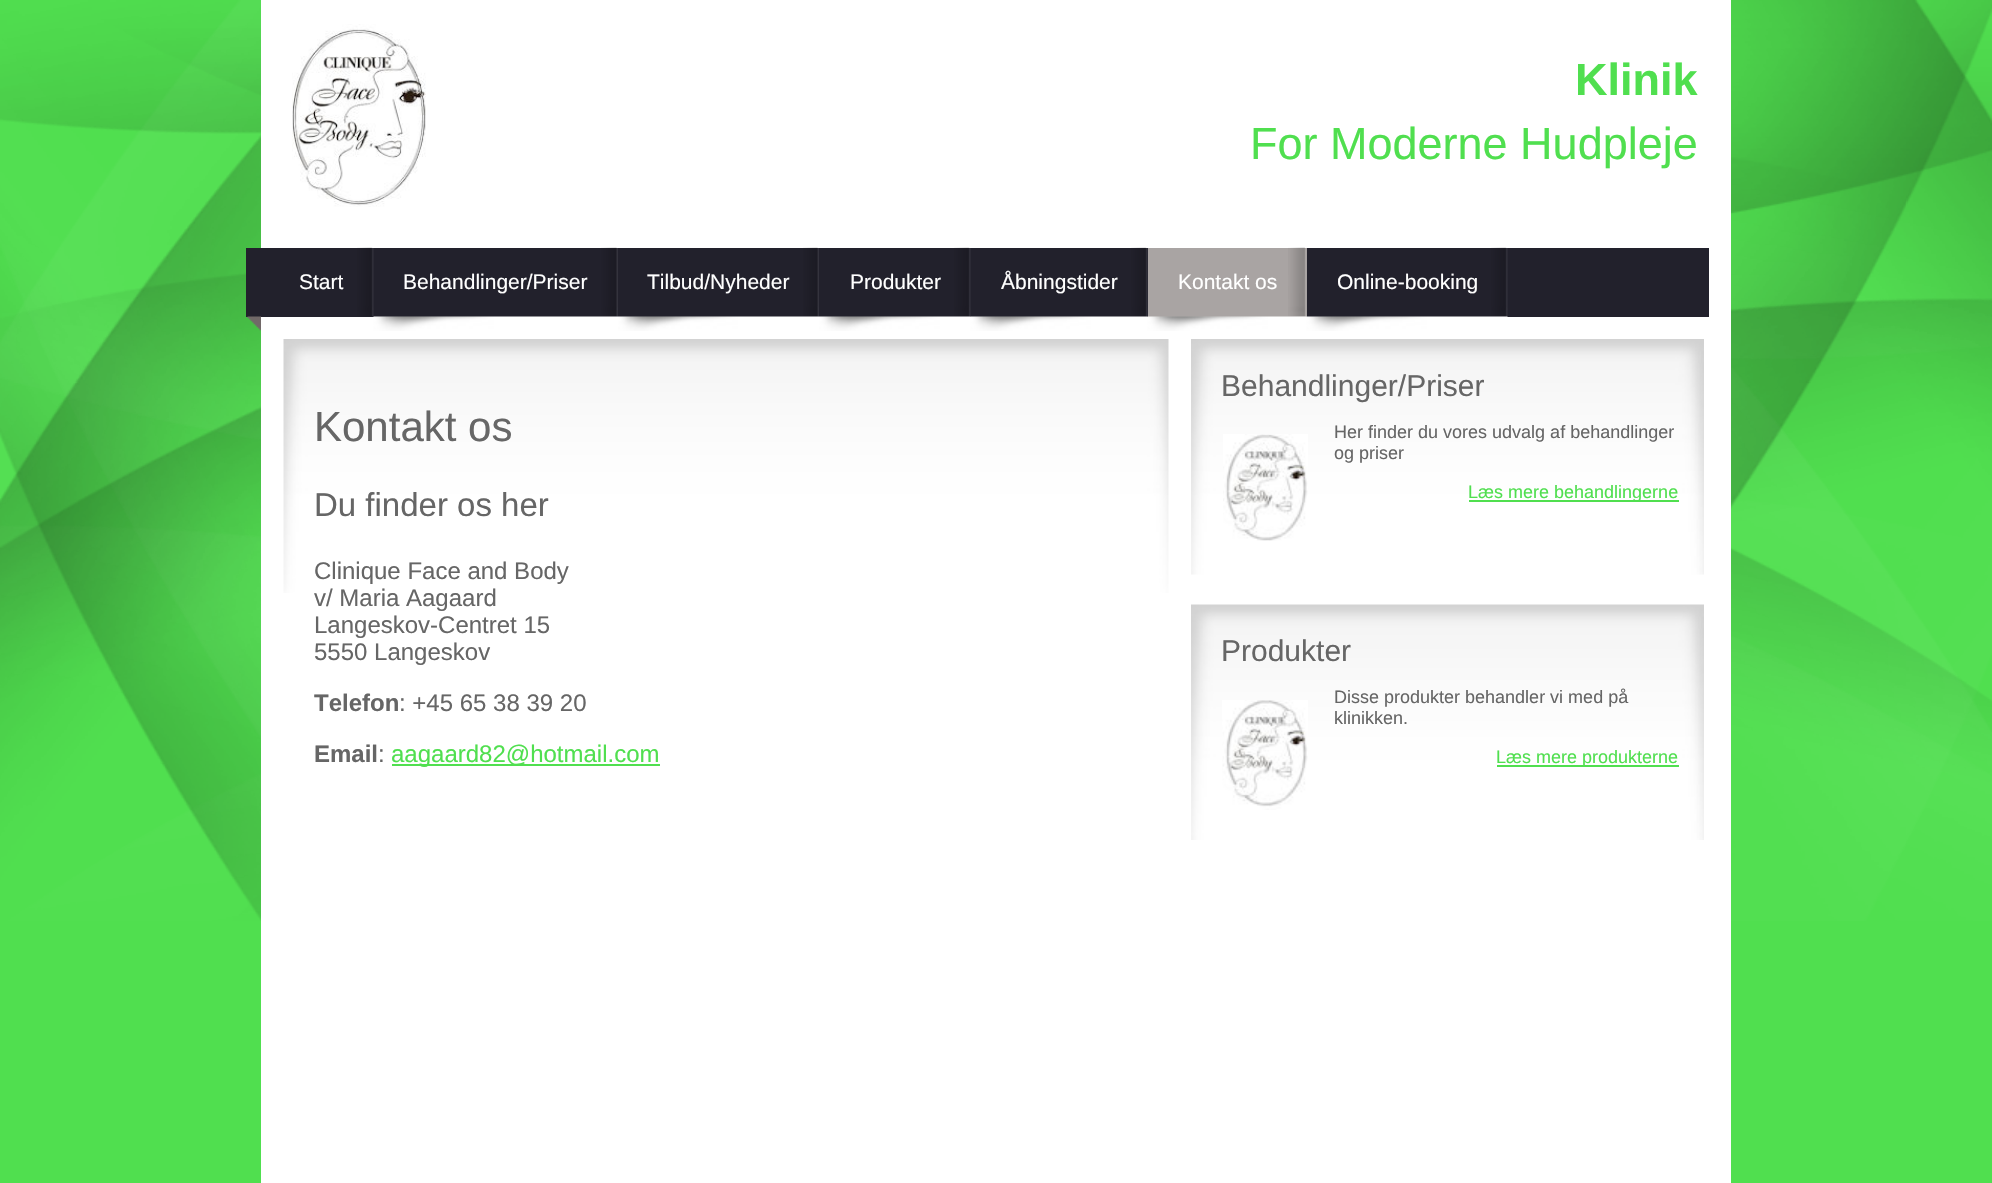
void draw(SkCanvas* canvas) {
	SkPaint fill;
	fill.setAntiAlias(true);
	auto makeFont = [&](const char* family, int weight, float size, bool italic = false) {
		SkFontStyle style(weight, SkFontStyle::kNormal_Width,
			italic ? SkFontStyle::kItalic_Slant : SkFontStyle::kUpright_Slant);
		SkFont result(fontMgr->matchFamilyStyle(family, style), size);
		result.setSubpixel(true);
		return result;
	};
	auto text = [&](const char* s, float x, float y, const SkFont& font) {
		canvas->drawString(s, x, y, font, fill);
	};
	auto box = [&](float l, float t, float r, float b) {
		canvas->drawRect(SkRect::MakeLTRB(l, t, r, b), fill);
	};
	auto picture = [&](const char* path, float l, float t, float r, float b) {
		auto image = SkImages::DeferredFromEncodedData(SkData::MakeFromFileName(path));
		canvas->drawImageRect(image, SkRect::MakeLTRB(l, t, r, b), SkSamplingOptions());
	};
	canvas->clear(0xFF50DF4F);
	picture("image0.png", 0, 0, 1992, 921);
	fill.setColor(0xFFFFFFFF);
	box(261, 0, 1731, 1183);
	picture("image1.png", 292, 24, 426, 207);
	fill.setColor(0xFF22212C);
	box(246, 248, 1709, 317);
	picture("image2.png", 357, 247, 374, 317);
	picture("image3.png", 601, 247, 618, 317);
	picture("image4.png", 373, 316, 618, 331);
	picture("image5.png", 803, 247, 819, 317);
	picture("image6.png", 618, 316, 819, 331);
	picture("image7.png", 954, 247, 971, 317);
	picture("image8.png", 819, 316, 971, 331);
	picture("image7.png", 1131, 247, 1148, 317);
	picture("image9.png", 970, 316, 1148, 331);
	fill.setColor(0xFFA9A4A3);
	box(1148, 248, 1307, 317);
	picture("image10.png", 1288, 247, 1305, 317);
	picture("image11.png", 1147, 316, 1307, 331);
	picture("image7.png", 1491, 247, 1508, 317);
	picture("image12.png", 1306, 316, 1508, 331);
	picture("image13.png", 247, 316, 261, 331);
	picture("image14.png", 283, 339, 1169, 593);
	fill.setColor(0xFF50DF4F);
	box(392, 764, 660, 766);
	picture("image15.png", 1191, 339, 1704, 575);
	picture("image16.png", 1223, 434, 1308, 541);
	box(1469, 500, 1679, 502);
	picture("image17.png", 1191, 604, 1704, 840);
	picture("image18.png", 1222, 700, 1308, 810);
	box(1497, 765, 1679, 767);
	auto font1 = makeFont("Liberation Sans", 700, 45);
	text("Klinik", 1575, 95, font1);
	auto font2 = makeFont("Liberation Sans", 400, 45);
	text("For Moderne Hudpleje", 1250, 159, font2);
	auto font3 = makeFont("Liberation Sans", 400, 21);
	fill.setColor(0xFFFFFFFF);
	text("Start", 299, 289, font3);
	text("Behandlinger/Priser", 403, 289, font3);
	text("Tilbud/Nyheder", 647, 289, font3);
	text("Produkter", 850, 289, font3);
	text("Åbningstider", 1001, 289, font3);
	text("Kontakt os", 1178, 289, font3);
	text("Online-booking", 1337, 289, font3);
	auto font4 = makeFont("Liberation Sans", 400, 42);
	fill.setColor(0xFF666666);
	text("Kontakt os", 314, 441, font4);
	auto font5 = makeFont("Liberation Sans", 400, 33);
	text("Du finder os her", 314, 516, font5);
	auto font6 = makeFont("Liberation Sans", 400, 24);
	text("Clinique Face and Body", 314, 579, font6);
	text("v/ Maria Aagaard", 314, 606, font6);
	text("Langeskov-Centret 15", 314, 633, font6);
	text("5550 Langeskov", 314, 660, font6);
	auto font7 = makeFont("Liberation Sans", 700, 24);
	text("Telefon", 314, 711, font7);
	text(": +45 65 38 39 20", 399, 711, font6);
	text("Email", 314, 762, font7);
	text(":", 378, 762, font6);
	fill.setColor(0xFF50DF4F);
	text("aagaard82@hotmail.com", 391, 762, font6);
	auto font8 = makeFont("Liberation Sans", 400, 30);
	fill.setColor(0xFF666666);
	text("Behandlinger/Priser", 1221, 396, font8);
	auto font9 = makeFont("Liberation Sans", 400, 18);
	text("Her finder du vores udvalg af behandlinger", 1334, 438, font9);
	text("og priser", 1334, 459, font9);
	fill.setColor(0xFF50DF4F);
	text("Læs mere behandlingerne", 1468, 498, font9);
	fill.setColor(0xFF666666);
	text("Produkter", 1221, 661, font8);
	text("Disse produkter behandler vi med på", 1334, 703, font9);
	text("klinikken.", 1334, 724, font9);
	fill.setColor(0xFF50DF4F);
	text("Læs mere produkterne", 1496, 763, font9);
}
